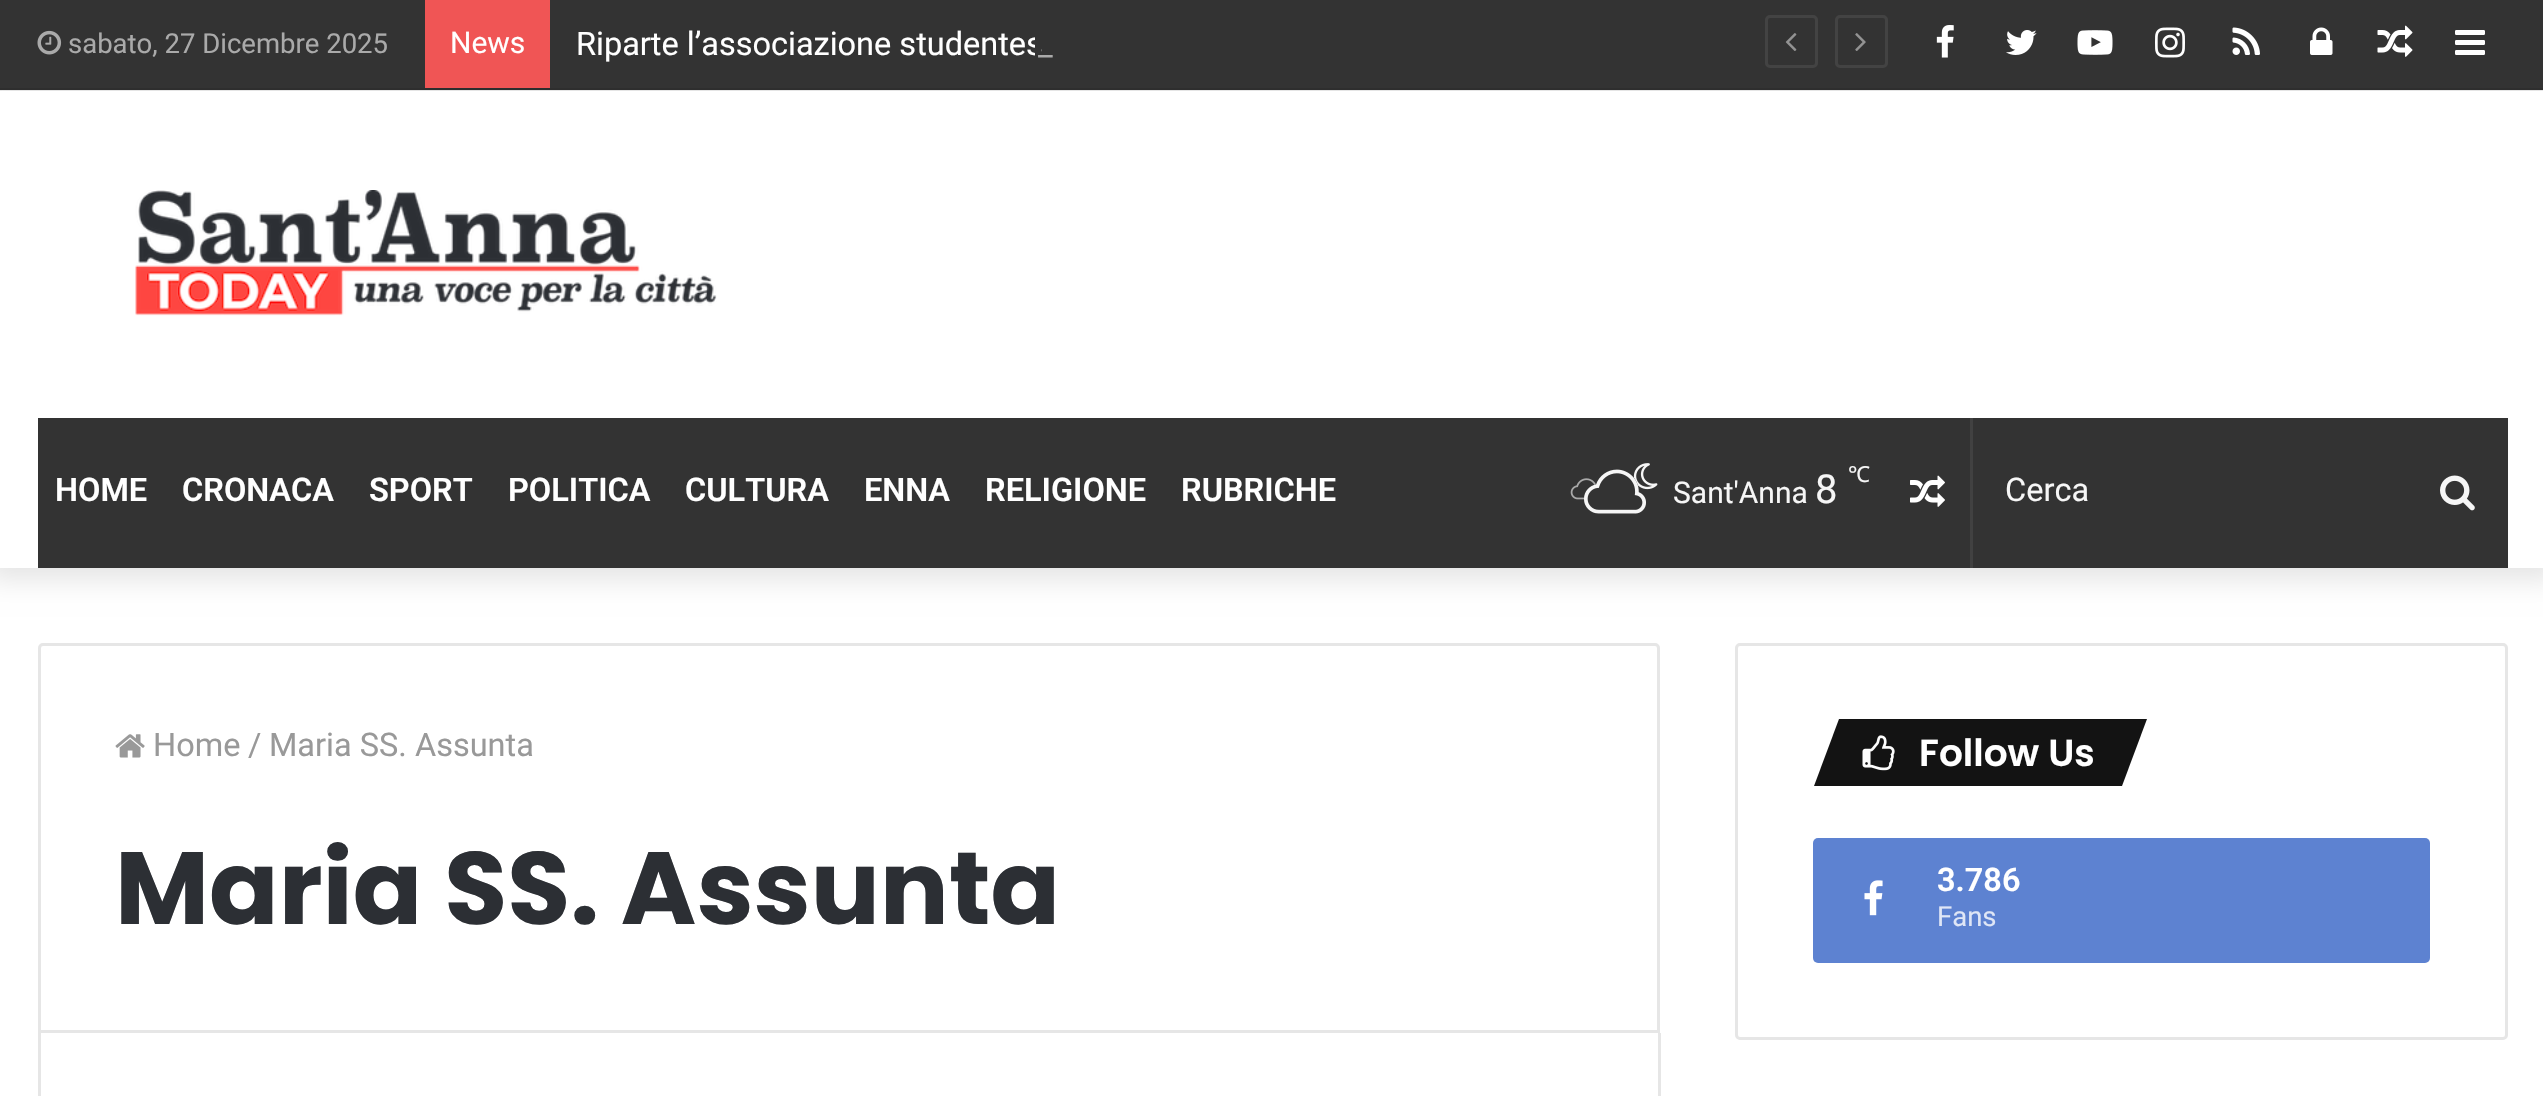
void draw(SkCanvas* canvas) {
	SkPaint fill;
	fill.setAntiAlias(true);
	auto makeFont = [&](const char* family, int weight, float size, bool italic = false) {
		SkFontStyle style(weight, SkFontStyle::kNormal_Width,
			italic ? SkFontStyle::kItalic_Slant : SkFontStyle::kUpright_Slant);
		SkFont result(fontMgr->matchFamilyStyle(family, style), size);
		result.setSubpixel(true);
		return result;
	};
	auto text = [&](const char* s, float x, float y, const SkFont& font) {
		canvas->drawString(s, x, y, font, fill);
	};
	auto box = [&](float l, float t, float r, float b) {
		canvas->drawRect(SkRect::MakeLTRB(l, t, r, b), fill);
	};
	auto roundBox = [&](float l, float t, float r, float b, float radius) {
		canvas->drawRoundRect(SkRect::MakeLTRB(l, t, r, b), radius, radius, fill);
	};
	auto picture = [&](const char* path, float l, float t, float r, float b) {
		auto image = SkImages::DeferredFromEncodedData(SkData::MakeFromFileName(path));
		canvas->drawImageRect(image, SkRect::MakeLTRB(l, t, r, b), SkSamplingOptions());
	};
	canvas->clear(0xFFFFFFFF);
	fill.setColor(0x1A000000);
	fill.setMaskFilter(SkMaskFilter::MakeBlur(kNormal_SkBlurStyle, 12.5f));
	canvas->drawRect(SkRect::MakeLTRB(-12, -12, 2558, 580), fill);
	fill.setMaskFilter(nullptr);
	fill.setColor(0xFFFFFFFF);
	box(0, 91, 2543, 568);
	fill.setColor(0xFFE6E6E6);
	box(0, 90, 2, 91);
	fill.setColor(0xFF333333);
	box(0, 0, 2543, 88);
	fill.setColor(0xFF2E2E2E);
	box(0, 88, 2543, 90);
	picture("image0.png", 37, 30, 62, 55);
	fill.setColor(0xFFF05555);
	box(425, 0, 550, 88);
	fill.setStyle(SkPaint::kStroke_Style);
	fill.setStrokeWidth(3);
	fill.setColor(0xFF434343);
	canvas->drawRoundRect(SkRect::MakeLTRB(1766.5f, 16.5f, 1816.5f, 66.5f), 3.5f, 3.5f, fill);
	picture("image1.png", 1785, 33, 1797, 51);
	canvas->drawRoundRect(SkRect::MakeLTRB(1836.5f, 16.5f, 1886.5f, 66.5f), 3.5f, 3.5f, fill);
	picture("image2.png", 1855, 33, 1866, 51);
	picture("image3.png", 1936, 25, 1954, 58);
	picture("image4.png", 2006, 30, 2037, 55);
	picture("image5.png", 2077, 30, 2113, 55);
	picture("image6.png", 2155, 27, 2185, 58);
	picture("image7.png", 2232, 27, 2260, 55);
	picture("image8.png", 2310, 27, 2333, 55);
	picture("image9.png", 2377, 25, 2413, 57);
	picture("image10.png", 2455, 30, 2485, 55);
	picture("image11.png", 135, 190, 717, 316);
	fill.setStyle(SkPaint::kFill_Style);
	fill.setColor(0xFF333333);
	box(38, 418, 2508, 568);
	picture("image12.png", 1633, 463, 1658, 490);
	picture("image13.png", 1570, 478, 1597, 500);
	picture("image15.png", 1584, 478, 1638, 500);
	picture("image14.png", 1584, 469, 1646, 514);
	picture("image16.png", 1910, 475, 1945, 507);
	fill.setColor(0xFF414141);
	box(1970, 418, 1973, 568);
	picture("image17.png", 2440, 475, 2475, 511);
	fill.setStyle(SkPaint::kStroke_Style);
	fill.setColor(0xFFE6E6E6);
	canvas->drawPath(SkPathBuilder().moveTo(43, 644.5f).lineTo(1655, 644.5f).cubicTo(1657, 644.5f, 1658.5f, 646, 1658.5f, 648).lineTo(1658.5f, 1031.5f).lineTo(39.5f, 1031.5f).lineTo(39.5f, 648).cubicTo(39.5f, 646, 41, 644.5f, 43, 644.5f).close().detach(), fill);
	picture("image18.png", 115, 734, 145, 758);
	fill.setStyle(SkPaint::kFill_Style);
	box(1658, 1033, 1661, 1096);
	box(38, 1033, 41, 1096);
	fill.setStyle(SkPaint::kStroke_Style);
	canvas->drawRoundRect(SkRect::MakeLTRB(1736.5f, 644.5f, 2506.5f, 1038.5f), 3.5f, 3.5f, fill);
	fill.setStyle(SkPaint::kFill_Style);
	fill.setColor(0xFF131313);
	canvas->drawPath(SkPathBuilder().moveTo(1839, 719).lineTo(2147, 719).lineTo(2122, 786).lineTo(1814, 786).close().detach(), fill);
	picture("image19.png", 1862, 735, 1895, 771);
	fill.setColor(0xFF5D82D1);
	roundBox(1813, 838, 2430, 963, 5);
	picture("image20.png", 1864, 880, 1883, 916);
	auto font1 = makeFont("Roboto", 400, 27.5f);
	fill.setColor(0xFFAAAAAA);
	text("sabato, 27 Dicembre 2025", 68, 53, font1);
	auto font2 = makeFont("Roboto", 400, 30);
	fill.setColor(0xFFFFFFFF);
	text("News", 450, 53, font2);
	auto font3 = makeFont("Roboto", 400, 32.5f);
	text("Riparte l’associazione studentes", 576, 55, font3);
	fill.setColor(0xFF333333);
	box(1035, 37, 1041, 56);
	fill.setColor(0xFFAAAAAA);
	text("_", 1038, 55, font3);
	auto font4 = makeFont("Roboto", 600, 32.5f);
	fill.setColor(0xFFFFFFFF);
	text("HOME", 55, 501, font4);
	text("CRONACA", 182, 501, font4);
	text("SPORT", 369, 501, font4);
	text("POLITICA", 508, 501, font4);
	text("CULTURA", 685, 501, font4);
	text("ENNA", 864, 501, font4);
	text("RELIGIONE", 985, 501, font4);
	text("RUBRICHE", 1181, 501, font4);
	fill.setColor(0xFFF6F6F6);
	text("Sant'Anna", 1673, 503, font2);
	auto font5 = makeFont("Roboto", 400, 40);
	text("8", 1815, 503, font5);
	auto font6 = makeFont("Noto Sans", 400, 22);
	text("℃", 1848, 482, font6);
	text("Cerca", 2005, 501, font3);
	fill.setColor(0xFF999999);
	text("Home", 153, 756, font3);
	text("/", 248, 756, font3);
	text("Maria SS. Assunta", 269, 756, font3);
	auto font7 = makeFont("Poppins", 700, 102.5f);
	fill.setColor(0xFF2C2F34);
	text("Maria SS. Assunta", 115, 924, font7);
	auto font8 = makeFont("Poppins", 600, 37.5f);
	fill.setColor(0xFFFFFFFF);
	text("Follow Us", 1919, 766, font8);
	text("3.786", 1937, 891, font4);
	fill.setColor(0xFFDFE6F6);
	text("Fans", 1937, 926, font1);
}
